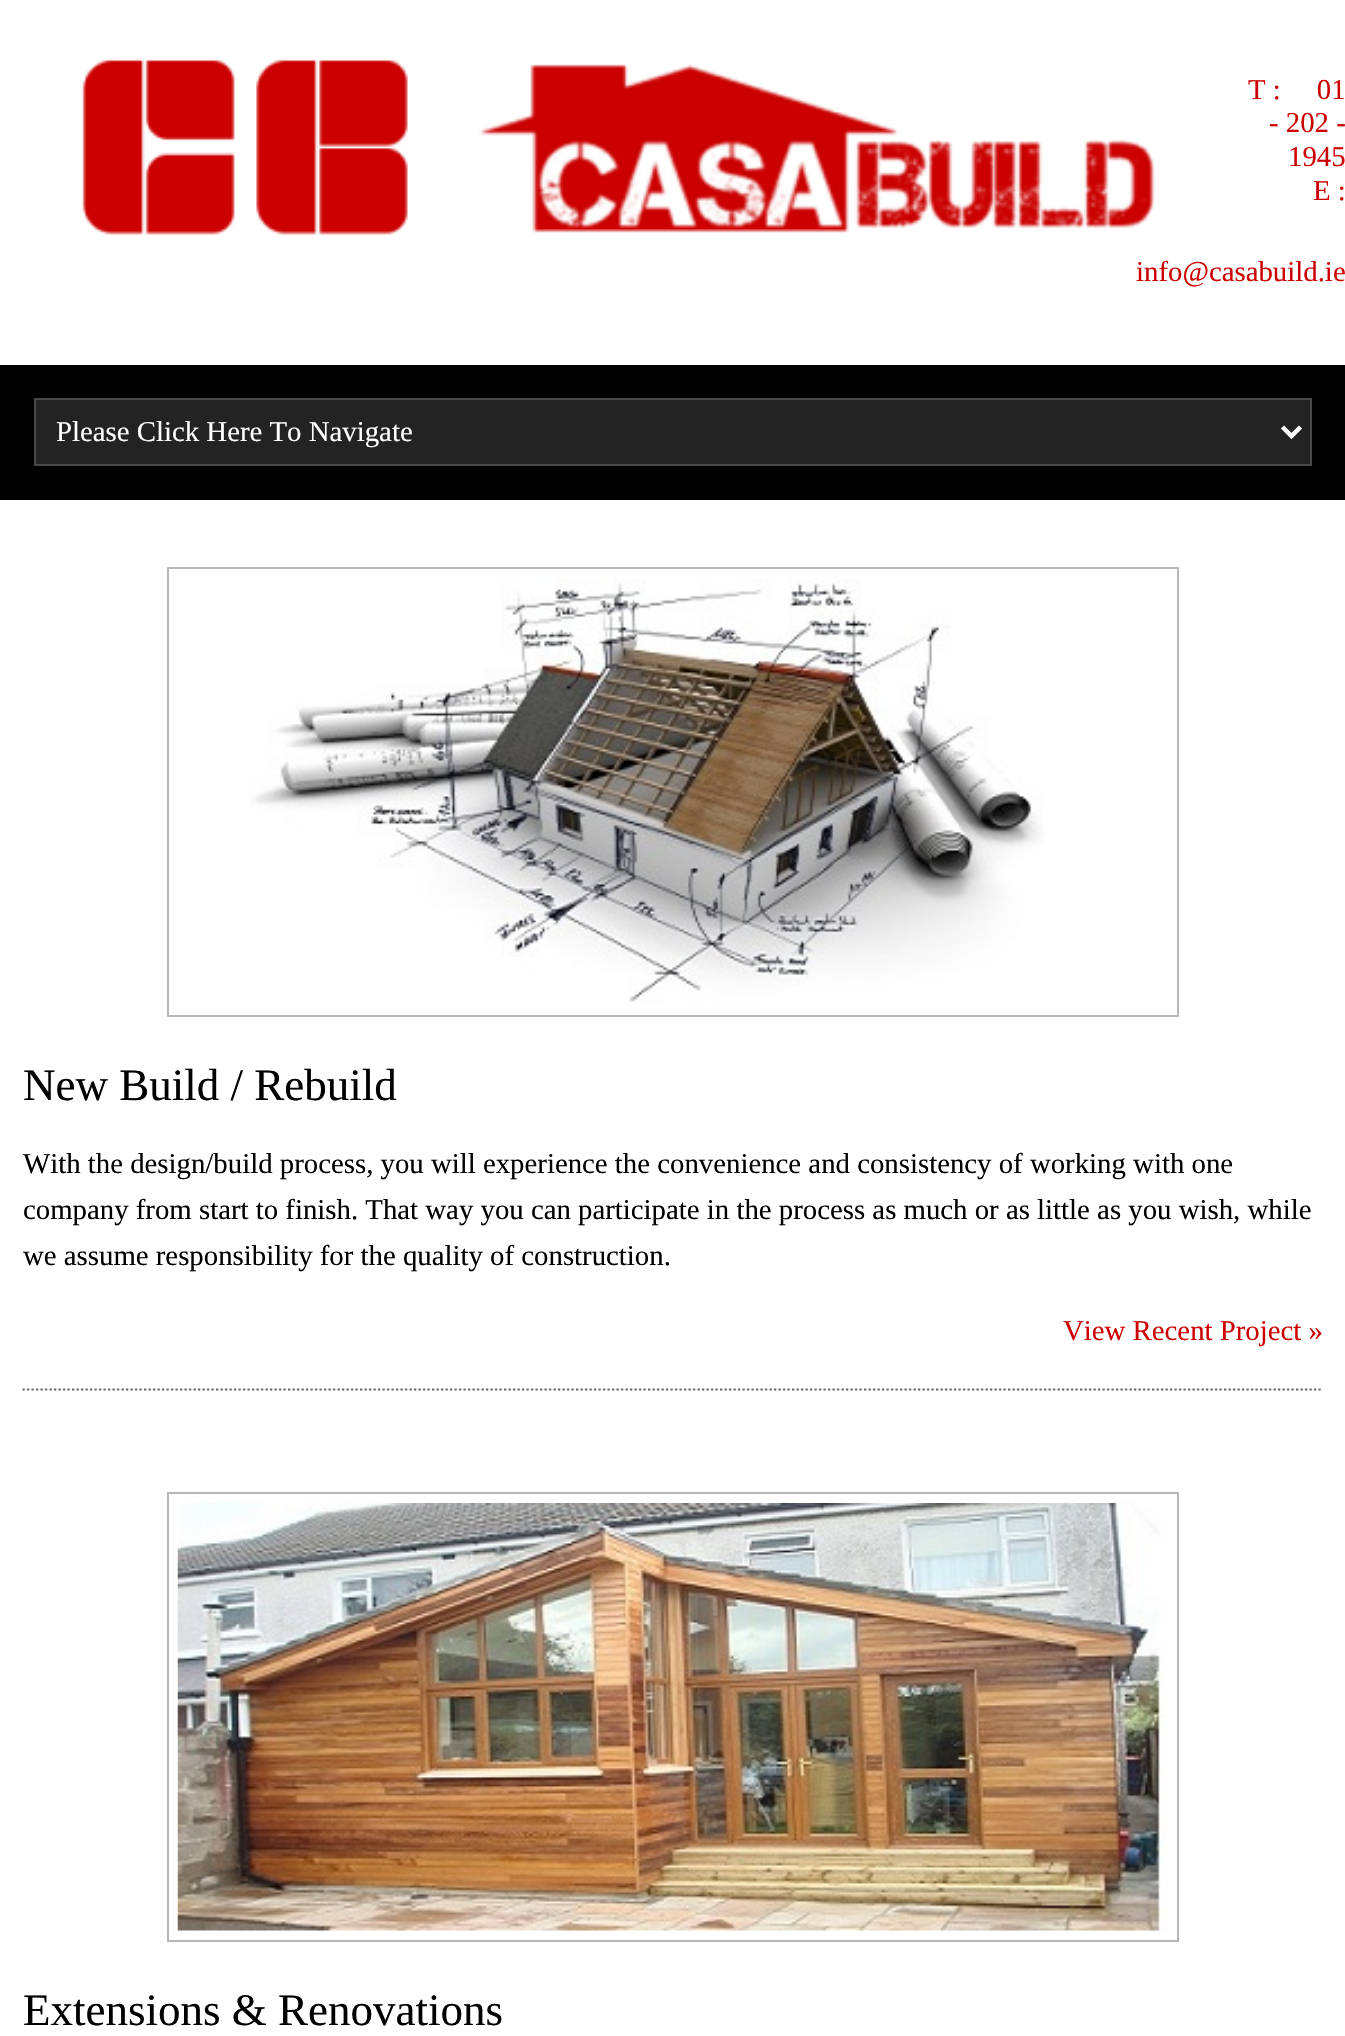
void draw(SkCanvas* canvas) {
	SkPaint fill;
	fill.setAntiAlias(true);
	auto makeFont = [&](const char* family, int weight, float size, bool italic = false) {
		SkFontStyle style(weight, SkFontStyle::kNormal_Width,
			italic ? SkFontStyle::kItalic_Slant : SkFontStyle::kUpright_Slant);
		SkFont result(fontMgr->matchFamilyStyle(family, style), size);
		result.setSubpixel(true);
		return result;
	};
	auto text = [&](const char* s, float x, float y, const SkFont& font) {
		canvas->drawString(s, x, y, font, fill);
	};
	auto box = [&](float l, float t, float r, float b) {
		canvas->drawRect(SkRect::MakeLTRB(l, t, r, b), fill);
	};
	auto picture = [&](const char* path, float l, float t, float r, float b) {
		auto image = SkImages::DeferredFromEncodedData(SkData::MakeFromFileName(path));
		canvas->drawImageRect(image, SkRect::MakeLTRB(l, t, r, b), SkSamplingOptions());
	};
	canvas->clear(0xFF000000);
	fill.setColor(0xFFFFFFFF);
	box(0, 0, 1345, 365);
	picture("image0.png", 82, 58, 1155, 235);
	fill.setColor(0xFF232323);
	canvas->drawRect(SkRect::MakeLTRB(35, 399, 1311, 465), fill);
	fill.setStyle(SkPaint::kStroke_Style);
	fill.setStrokeWidth(2);
	fill.setColor(0xFF494949);
	canvas->drawRect(SkRect::MakeLTRB(35, 399, 1311, 465), fill);
	fill.setStrokeWidth(4.5f);
	fill.setColor(0xFFFFFFFF);
	canvas->drawPath(SkPathBuilder().moveTo(1282.5f, 427).lineTo(1291.5f, 436).lineTo(1300.5f, 427).detach(), fill);
	fill.setStyle(SkPaint::kFill_Style);
	box(0, 500, 1345, 2036);
	fill.setStyle(SkPaint::kStroke_Style);
	fill.setStrokeWidth(2.2f);
	fill.setColor(0xFF666666);
	fill.setPathEffect(SkDashPathEffect::Make({{2.25f, 2.25f}}, 0));
	canvas->drawPath(SkPathBuilder().moveTo(22.5f, 1389.5f).lineTo(1323, 1389.5f).detach(), fill);
	fill.setPathEffect(nullptr);
	fill.setStrokeWidth(2);
	fill.setColor(0xFFB7B7B7);
	canvas->drawRect(SkRect::MakeLTRB(168, 568, 1178, 1016), fill);
	picture("image1.png", 250, 578, 1045, 1002);
	canvas->drawRect(SkRect::MakeLTRB(168, 1493, 1178, 1941), fill);
	picture("image2.png", 177, 1503, 1168, 1931);
	auto font1 = makeFont("Liberation Serif", 400, 28.8f);
	fill.setStyle(SkPaint::kFill_Style);
	fill.setColor(0xFFCC0000);
	text("T :   01", 1248, 99, font1);
	text("- 202 -", 1269, 132, font1);
	text("1945", 1288, 166, font1);
	text("E :", 1313, 200, font1);
	text("info@casabuild.ie", 1136, 281, font1);
	fill.setColor(0xFFFFFFFF);
	text("Please Click Here To Navigate", 56, 441, font1);
	auto font2 = makeFont("Liberation Serif", 400, 45);
	fill.setColor(0xFF000000);
	text("New Build / Rebuild", 23, 1100, font2);
	text("With the design/build process, you will experience the convenience and consistency of working with one", 23, 1173, font1);
	text("company from start to finish. That way you can participate in the process as much or as little as you wish, while", 23, 1219, font1);
	text("we assume responsibility for the quality of construction.", 23, 1265, font1);
	fill.setColor(0xFFCC0000);
	text("View Recent Project »", 1063, 1340, font1);
	fill.setColor(0xFF000000);
	text("Extensions & Renovations", 23, 2025, font2);
}
